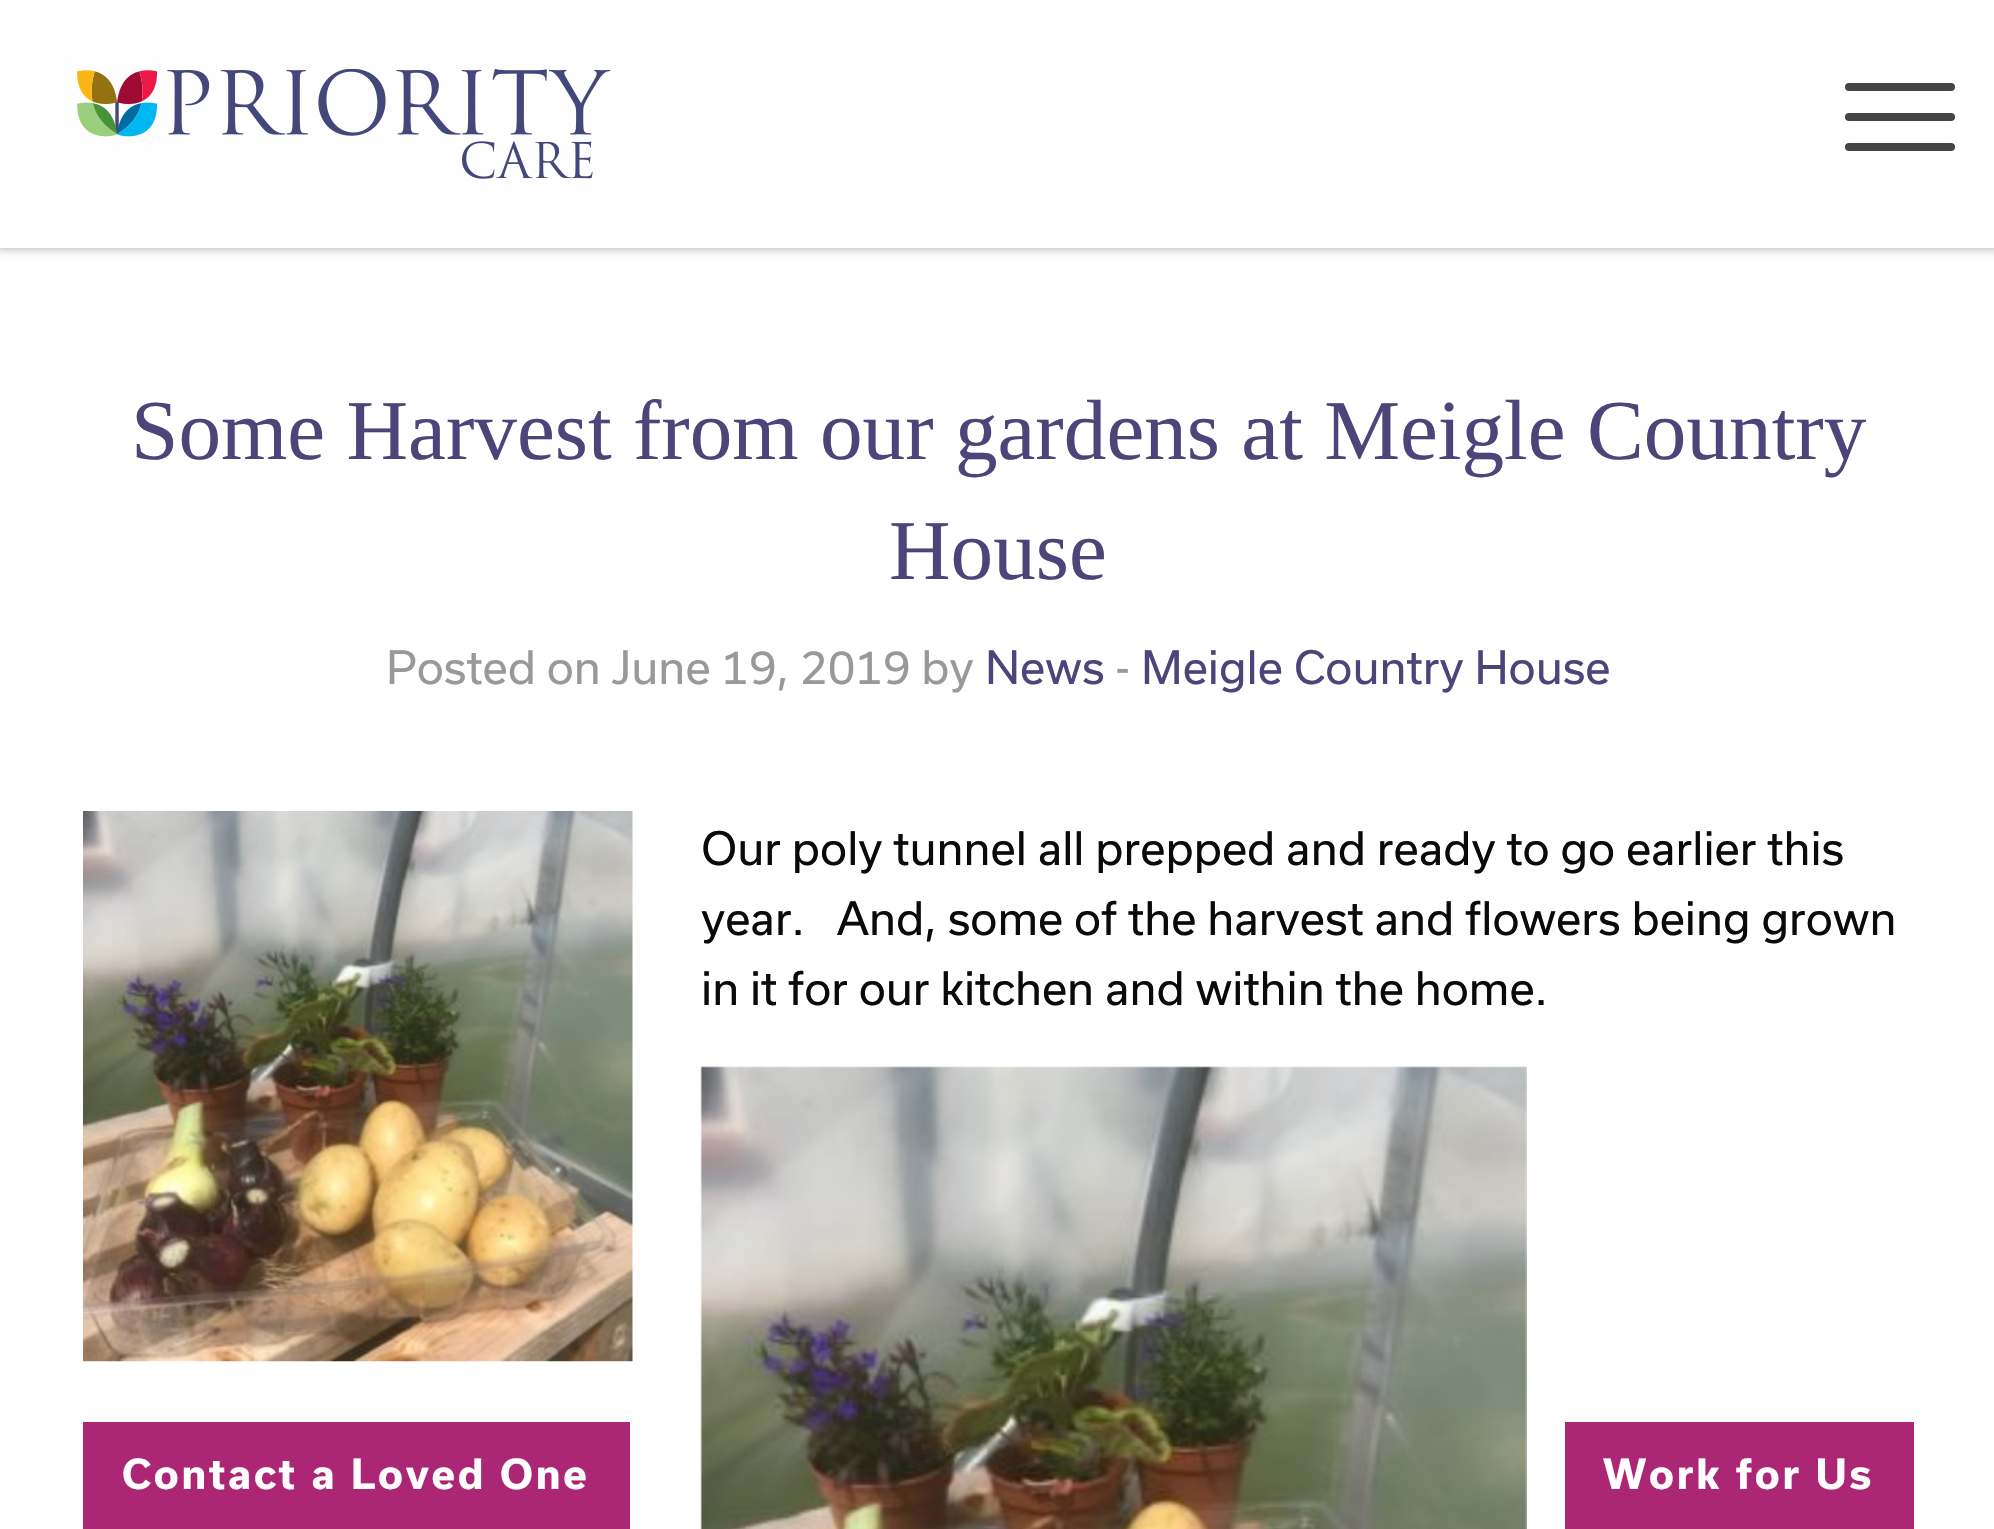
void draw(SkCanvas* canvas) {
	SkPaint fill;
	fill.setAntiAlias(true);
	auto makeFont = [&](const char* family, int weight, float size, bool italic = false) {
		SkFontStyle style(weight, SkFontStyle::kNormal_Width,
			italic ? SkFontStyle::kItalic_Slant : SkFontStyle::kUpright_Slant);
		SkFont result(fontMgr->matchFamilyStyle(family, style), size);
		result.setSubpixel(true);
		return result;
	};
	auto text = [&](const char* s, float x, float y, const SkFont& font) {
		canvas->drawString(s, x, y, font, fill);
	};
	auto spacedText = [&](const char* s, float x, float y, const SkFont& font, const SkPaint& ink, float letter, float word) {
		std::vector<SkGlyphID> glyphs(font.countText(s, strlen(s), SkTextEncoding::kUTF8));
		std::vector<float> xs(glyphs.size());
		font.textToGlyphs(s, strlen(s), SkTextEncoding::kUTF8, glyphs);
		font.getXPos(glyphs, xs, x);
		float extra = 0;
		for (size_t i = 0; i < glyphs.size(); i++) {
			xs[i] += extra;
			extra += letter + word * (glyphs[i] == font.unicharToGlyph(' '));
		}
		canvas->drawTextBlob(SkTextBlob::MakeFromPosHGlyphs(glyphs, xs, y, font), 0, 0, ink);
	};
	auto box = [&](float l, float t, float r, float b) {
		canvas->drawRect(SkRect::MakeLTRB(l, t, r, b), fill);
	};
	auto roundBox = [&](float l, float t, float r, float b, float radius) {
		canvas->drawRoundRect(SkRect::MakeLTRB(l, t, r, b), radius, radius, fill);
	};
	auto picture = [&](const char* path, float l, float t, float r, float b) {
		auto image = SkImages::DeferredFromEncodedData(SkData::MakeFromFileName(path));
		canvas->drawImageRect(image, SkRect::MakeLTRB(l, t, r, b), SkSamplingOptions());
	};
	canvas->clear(0xFFFFFFFF);
	fill.setColor(0x40000000);
	fill.setMaskFilter(SkMaskFilter::MakeBlur(kNormal_SkBlurStyle, 4));
	canvas->drawRect(SkRect::MakeLTRB(-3, -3, 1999, 250), fill);
	fill.setMaskFilter(nullptr);
	fill.setColor(0xFFFEFEFE);
	box(0, 0, 1994, 248);
	picture("image0.png", 77, 69, 611, 179);
	fill.setColor(0xFF444444);
	roundBox(1845, 83, 1955, 91, 4);
	roundBox(1845, 113, 1955, 121, 4);
	roundBox(1845, 143, 1955, 151, 4);
	picture("image1.png", 83, 811, 633, 1362);
	picture("image2.png", 700, 1066, 1527, 1529);
	fill.setColor(0xFFAB2674);
	box(83, 1422, 630, 1529);
	box(1565, 1422, 1914, 1529);
	auto font1 = makeFont("Liberation Serif", 400, 85.25f);
	fill.setColor(0xFF4D4479);
	text("Some Harvest from our gardens at Meigle Country", 131, 459, font1);
	text("House", 889, 579, font1);
	auto font2 = makeFont("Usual", 400, 44);
	fill.setColor(0xFF999999);
	text("Posted on June 19, 2019 by", 386, 684, font2);
	fill.setColor(0xFF4D4479);
	text("News", 985, 684, font2);
	fill.setColor(0xFF999999);
	text("-", 1115, 684, font2);
	fill.setColor(0xFF4D4479);
	text("Meigle Country House", 1141, 684, font2);
	fill.setColor(0xFF0A0A0A);
	text("Our poly tunnel all prepped and ready to go earlier this", 701, 865, font2);
	text("year.   And, some of the harvest and flowers being grown", 701, 935, font2);
	text("in it for our kitchen and within the home.", 701, 1005, font2);
	auto font3 = makeFont("Usual", 700, 39.6f);
	fill.setColor(0xFFFEFEFE);
	spacedText("Contact a Loved One", 122, 1489, font3, fill, 2.75f, 0);
	spacedText("Work for Us", 1603, 1489, font3, fill, 2.75f, 0);
}
